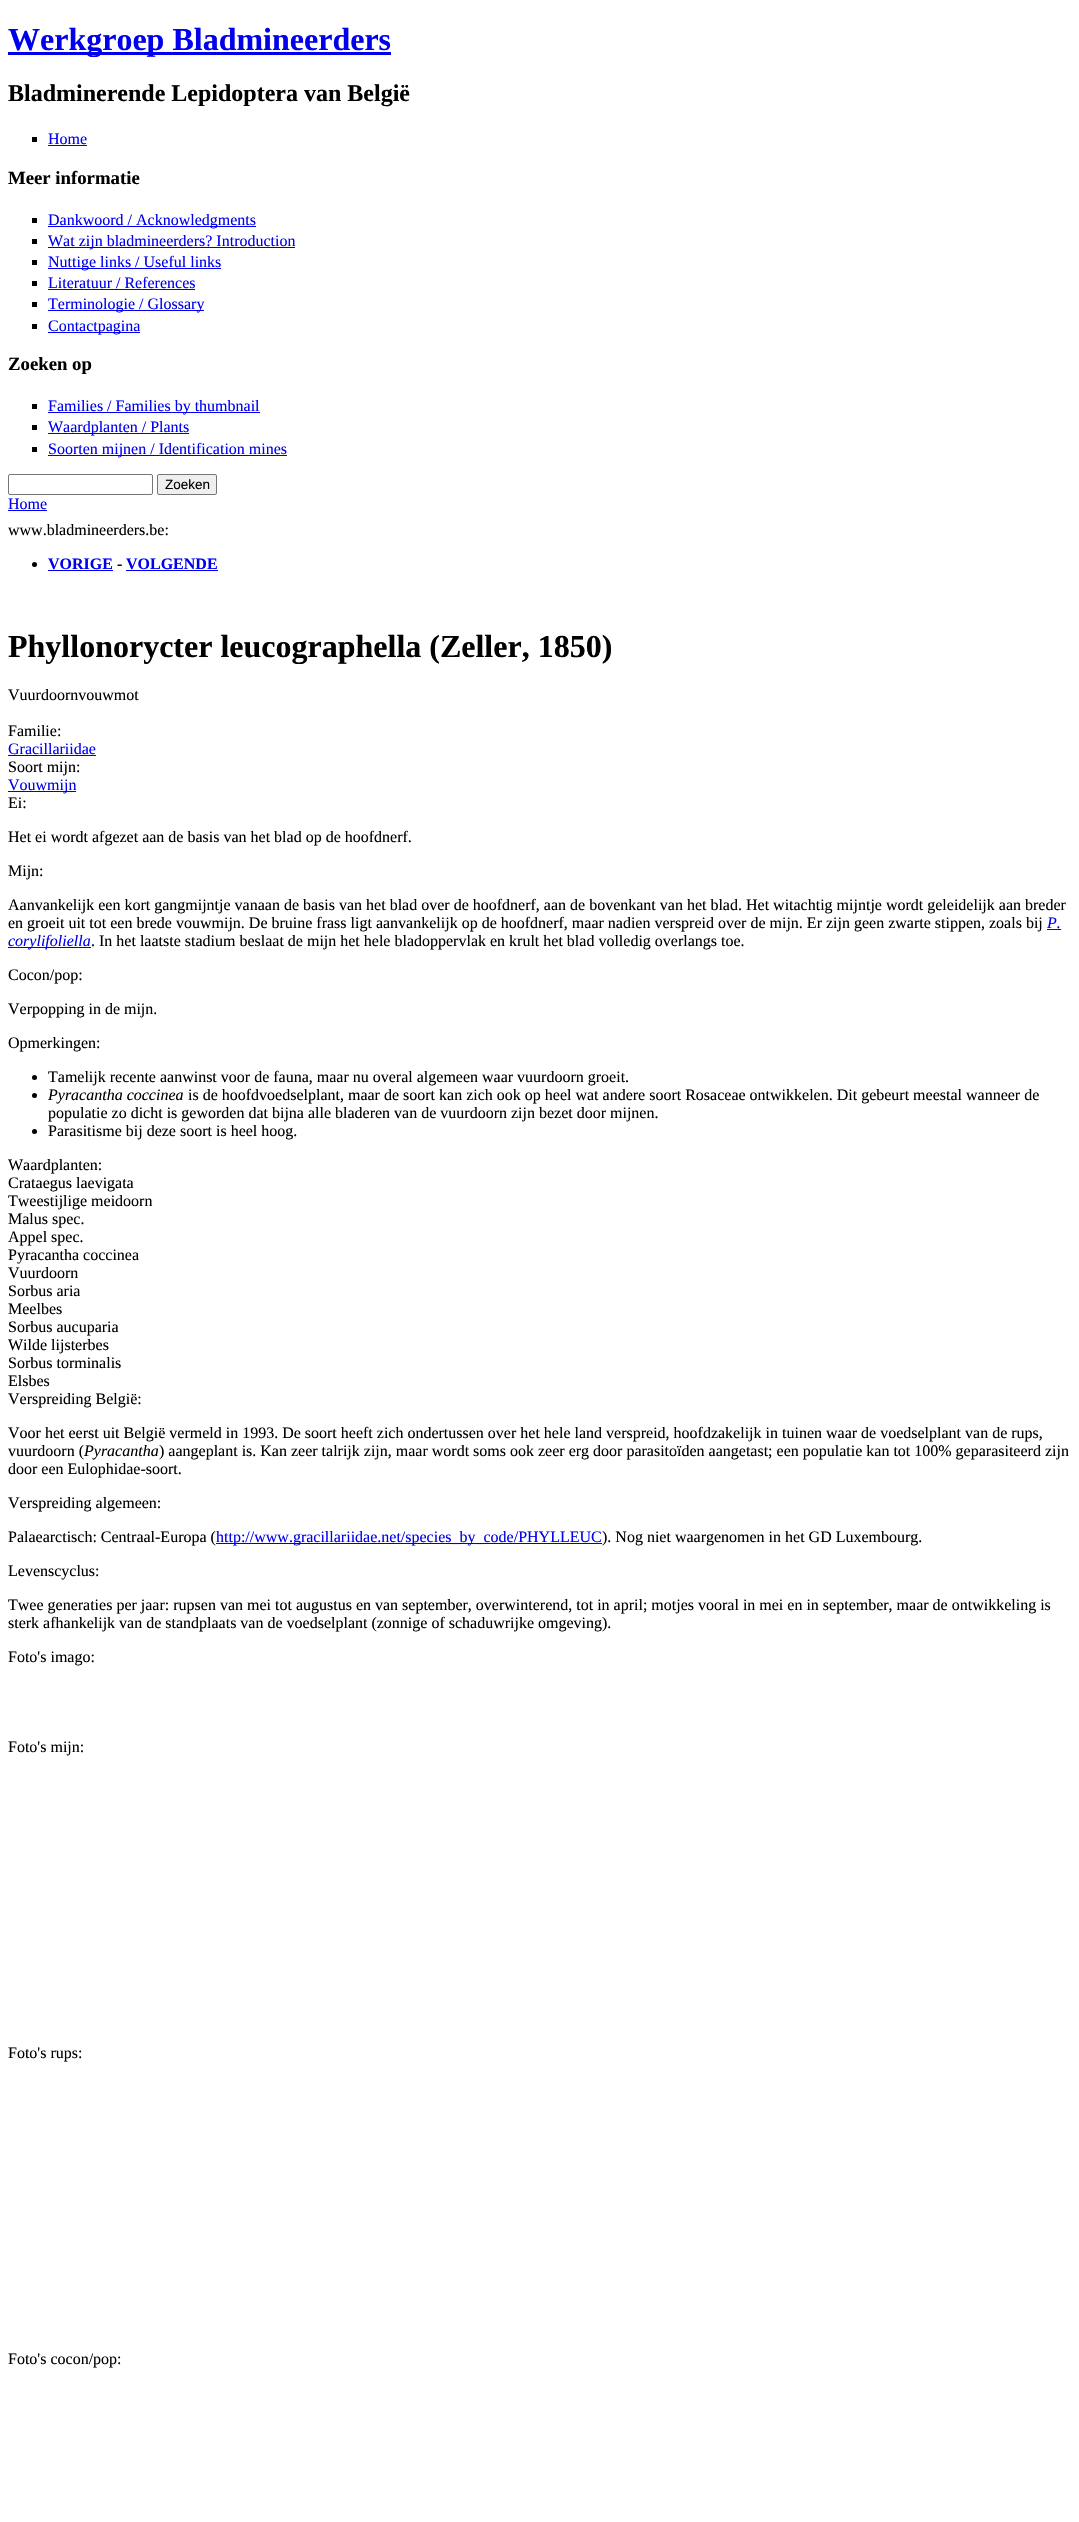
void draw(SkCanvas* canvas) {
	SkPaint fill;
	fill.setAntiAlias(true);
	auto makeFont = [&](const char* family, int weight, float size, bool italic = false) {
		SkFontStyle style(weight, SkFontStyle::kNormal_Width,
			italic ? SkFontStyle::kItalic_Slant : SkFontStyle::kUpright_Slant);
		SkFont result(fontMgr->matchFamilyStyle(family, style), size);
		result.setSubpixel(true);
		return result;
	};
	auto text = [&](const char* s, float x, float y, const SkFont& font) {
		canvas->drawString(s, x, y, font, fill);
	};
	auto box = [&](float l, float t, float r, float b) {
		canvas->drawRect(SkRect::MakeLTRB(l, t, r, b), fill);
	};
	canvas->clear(0xFFFFFFFF);
	fill.setColor(0xFF0000EE);
	box(8, 52, 391, 55);
	fill.setColor(0xFF000000);
	box(32, 137, 37, 142);
	fill.setColor(0xFF0000EE);
	box(48, 145, 87, 146);
	fill.setColor(0xFF000000);
	box(32, 218, 37, 223);
	fill.setColor(0xFF0000EE);
	box(48, 226, 256, 227);
	fill.setColor(0xFF000000);
	box(32, 239, 37, 244);
	fill.setColor(0xFF0000EE);
	box(48, 247, 295, 248);
	fill.setColor(0xFF000000);
	box(32, 260, 37, 265);
	fill.setColor(0xFF0000EE);
	box(48, 268, 221, 269);
	fill.setColor(0xFF000000);
	box(32, 281, 37, 286);
	fill.setColor(0xFF0000EE);
	box(48, 289, 195, 290);
	fill.setColor(0xFF000000);
	box(32, 302, 37, 307);
	fill.setColor(0xFF0000EE);
	box(48, 310, 204, 311);
	fill.setColor(0xFF000000);
	box(32, 324, 37, 329);
	fill.setColor(0xFF0000EE);
	box(48, 332, 140, 333);
	fill.setColor(0xFF000000);
	box(32, 404, 37, 409);
	fill.setColor(0xFF0000EE);
	box(48, 412, 260, 413);
	fill.setColor(0xFF000000);
	box(32, 425, 37, 430);
	fill.setColor(0xFF0000EE);
	box(48, 433, 189, 434);
	fill.setColor(0xFF000000);
	box(32, 447, 37, 452);
	fill.setColor(0xFF0000EE);
	box(48, 455, 287, 456);
	fill.setStyle(SkPaint::kStroke_Style);
	fill.setStrokeWidth(1);
	fill.setColor(0xFF767676);
	canvas->drawRoundRect(SkRect::MakeLTRB(8.5f, 474.5f, 152.5f, 494.5f), 1.5f, 1.5f, fill);
	fill.setStyle(SkPaint::kFill_Style);
	fill.setColor(0xFFEFEFEF);
	canvas->drawRoundRect(SkRect::MakeLTRB(157.5f, 474.5f, 216.5f, 494.5f), 1.5f, 1.5f, fill);
	fill.setStyle(SkPaint::kStroke_Style);
	fill.setColor(0xFF767676);
	canvas->drawRoundRect(SkRect::MakeLTRB(157.5f, 474.5f, 216.5f, 494.5f), 1.5f, 1.5f, fill);
	fill.setStyle(SkPaint::kFill_Style);
	fill.setColor(0xFF0000EE);
	box(8, 510, 47, 511);
	fill.setColor(0xFF000000);
	canvas->drawCircle(34.5f, 564.5f, 2.5f, fill);
	fill.setColor(0xFF0000EE);
	box(48, 570, 113, 571);
	box(126, 570, 218, 571);
	box(8, 755, 96, 756);
	box(8, 791, 76, 792);
	box(1047, 929, 1061, 930);
	box(8, 947, 91, 948);
	fill.setColor(0xFF000000);
	canvas->drawCircle(34.5f, 1077.5f, 2.5f, fill);
	canvas->drawCircle(34.5f, 1095.5f, 2.5f, fill);
	canvas->drawCircle(34.5f, 1131.5f, 2.5f, fill);
	fill.setColor(0xFF0000EE);
	box(216, 1543, 602, 1544);
	auto font1 = makeFont("Liberation Serif", 700, 32);
	text("Werkgroep Bladmineerders", 8, 50, font1);
	auto font2 = makeFont("Liberation Serif", 700, 24);
	fill.setColor(0xFF000000);
	text("Bladminerende Lepidoptera van België", 8, 101, font2);
	auto font3 = makeFont("Liberation Serif", 400, 16);
	fill.setColor(0xFF0000EE);
	text("Home", 48, 144, font3);
	auto font4 = makeFont("Liberation Serif", 700, 18.75f);
	fill.setColor(0xFF000000);
	text("Meer informatie", 8, 184, font4);
	fill.setColor(0xFF0000EE);
	text("Dankwoord / Acknowledgments", 48, 225, font3);
	text("Wat zijn bladmineerders? Introduction", 48, 246, font3);
	text("Nuttige links / Useful links", 48, 267, font3);
	text("Literatuur / References", 48, 288, font3);
	text("Terminologie / Glossary", 48, 309, font3);
	text("Contactpagina", 48, 331, font3);
	fill.setColor(0xFF000000);
	text("Zoeken op", 8, 370, font4);
	fill.setColor(0xFF0000EE);
	text("Families / Families by thumbnail", 48, 411, font3);
	text("Waardplanten / Plants", 48, 432, font3);
	text("Soorten mijnen / Identification mines", 48, 454, font3);
	auto font5 = makeFont("Liberation Sans", 400, 13.5f);
	fill.setColor(0xFF000000);
	text("Zoeken", 165, 489, font5);
	fill.setColor(0xFF0000EE);
	text("Home", 8, 509, font3);
	fill.setColor(0xFF000000);
	text("www.bladmineerders.be:", 8, 535, font3);
	auto font6 = makeFont("Liberation Serif", 700, 16);
	fill.setColor(0xFF0000EE);
	text("VORIGE", 48, 569, font6);
	fill.setColor(0xFF000000);
	text("-", 117, 569, font6);
	fill.setColor(0xFF0000EE);
	text("VOLGENDE", 126, 569, font6);
	fill.setColor(0xFF000000);
	text("Phyllonorycter leucographella (Zeller, 1850)", 8, 657, font1);
	text("Vuurdoornvouwmot", 8, 700, font3);
	text("Familie:", 8, 736, font3);
	fill.setColor(0xFF0000EE);
	text("Gracillariidae", 8, 754, font3);
	fill.setColor(0xFF000000);
	text("Soort mijn:", 8, 772, font3);
	fill.setColor(0xFF0000EE);
	text("Vouwmijn", 8, 790, font3);
	fill.setColor(0xFF000000);
	text("Ei:", 8, 808, font3);
	text("Het ei wordt afgezet aan de basis van het blad op de hoofdnerf.", 8, 842, font3);
	text("Mijn:", 8, 876, font3);
	text("Aanvankelijk een kort gangmijntje vanaan de basis van het blad over de hoofdnerf, aan de bovenkant van het blad. Het witachtig mijntje wordt geleidelijk aan breder", 8, 910, font3);
	text("en groeit uit tot een brede vouwmijn. De bruine frass ligt aanvankelijk op de hoofdnerf, maar nadien verspreid over de mijn. Er zijn geen zwarte stippen, zoals bij", 8, 928, font3);
	auto font7 = makeFont("Liberation Serif", 400, 16, true);
	fill.setColor(0xFF0000EE);
	text("P.", 1047, 928, font7);
	text("corylifoliella", 8, 946, font7);
	fill.setColor(0xFF000000);
	text(". In het laatste stadium beslaat de mijn het hele bladoppervlak en krult het blad volledig overlangs toe.", 91, 946, font3);
	text("Cocon/pop:", 8, 980, font3);
	text("Verpopping in de mijn.", 8, 1014, font3);
	text("Opmerkingen:", 8, 1048, font3);
	text("Tamelijk recente aanwinst voor de fauna, maar nu overal algemeen waar vuurdoorn groeit.", 48, 1082, font3);
	text("Pyracantha coccinea", 48, 1100, font7);
	text("is de hoofdvoedselplant, maar de soort kan zich ook op heel wat andere soort Rosaceae ontwikkelen. Dit gebeurt meestal wanneer de", 188, 1100, font3);
	text("populatie zo dicht is geworden dat bijna alle bladeren van de vuurdoorn zijn bezet door mijnen.", 48, 1118, font3);
	text("Parasitisme bij deze soort is heel hoog.", 48, 1136, font3);
	text("Waardplanten:", 8, 1170, font3);
	text("Crataegus laevigata", 8, 1188, font3);
	text("Tweestijlige meidoorn", 8, 1206, font3);
	text("Malus spec.", 8, 1224, font3);
	text("Appel spec.", 8, 1242, font3);
	text("Pyracantha coccinea", 8, 1260, font3);
	text("Vuurdoorn", 8, 1278, font3);
	text("Sorbus aria", 8, 1296, font3);
	text("Meelbes", 8, 1314, font3);
	text("Sorbus aucuparia", 8, 1332, font3);
	text("Wilde lijsterbes", 8, 1350, font3);
	text("Sorbus torminalis", 8, 1368, font3);
	text("Elsbes", 8, 1386, font3);
	text("Verspreiding België:", 8, 1404, font3);
	text("Voor het eerst uit België vermeld in 1993. De soort heeft zich ondertussen over het hele land verspreid, hoofdzakelijk in tuinen waar de voedselplant van de rups,", 8, 1438, font3);
	text("vuurdoorn (", 8, 1456, font3);
	text("Pyracantha", 84, 1456, font7);
	text(") aangeplant is. Kan zeer talrijk zijn, maar wordt soms ook zeer erg door parasitoïden aangetast; een populatie kan tot 100% geparasiteerd zijn", 159, 1456, font3);
	text("door een Eulophidae-soort.", 8, 1474, font3);
	text("Verspreiding algemeen:", 8, 1508, font3);
	text("Palaearctisch: Centraal-Europa (", 8, 1542, font3);
	fill.setColor(0xFF0000EE);
	text("http://www.gracillariidae.net/species_by_code/PHYLLEUC", 216, 1542, font3);
	fill.setColor(0xFF000000);
	text("). Nog niet waargenomen in het GD Luxembourg.", 602, 1542, font3);
	text("Levenscyclus:", 8, 1576, font3);
	text("Twee generaties per jaar: rupsen van mei tot augustus en van september, overwinterend, tot in april; motjes vooral in mei en in september, maar de ontwikkeling is", 8, 1610, font3);
	text("sterk afhankelijk van de standplaats van de voedselplant (zonnige of schaduwrijke omgeving).", 8, 1628, font3);
	text("Foto's imago:", 8, 1662, font3);
	text("Foto's mijn:", 8, 1752, font3);
	text("Foto's rups:", 8, 2058, font3);
	text("Foto's cocon/pop:", 8, 2364, font3);
}
